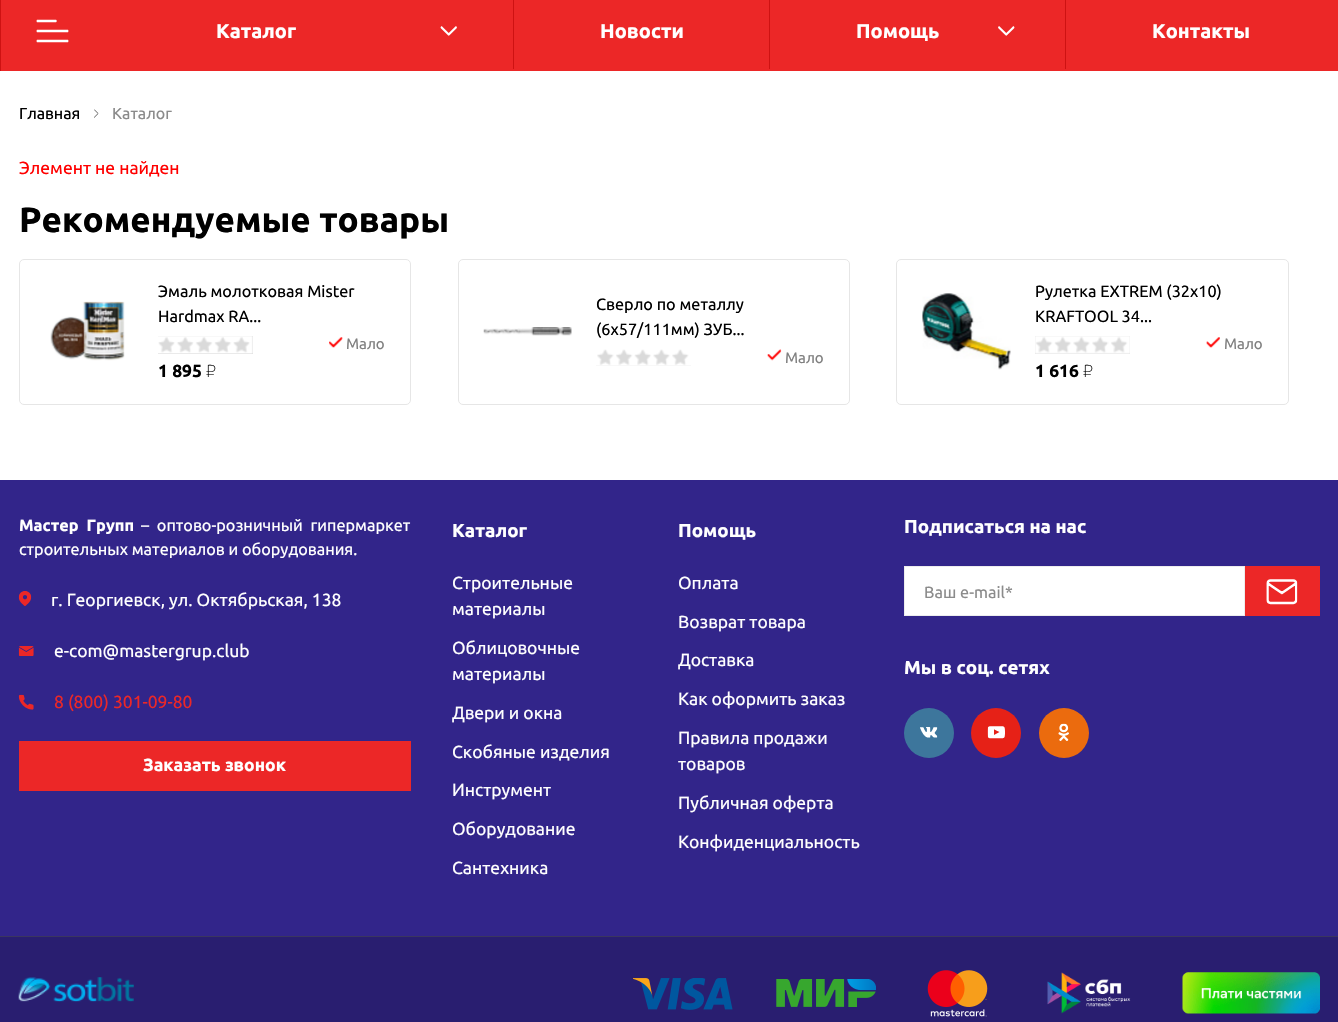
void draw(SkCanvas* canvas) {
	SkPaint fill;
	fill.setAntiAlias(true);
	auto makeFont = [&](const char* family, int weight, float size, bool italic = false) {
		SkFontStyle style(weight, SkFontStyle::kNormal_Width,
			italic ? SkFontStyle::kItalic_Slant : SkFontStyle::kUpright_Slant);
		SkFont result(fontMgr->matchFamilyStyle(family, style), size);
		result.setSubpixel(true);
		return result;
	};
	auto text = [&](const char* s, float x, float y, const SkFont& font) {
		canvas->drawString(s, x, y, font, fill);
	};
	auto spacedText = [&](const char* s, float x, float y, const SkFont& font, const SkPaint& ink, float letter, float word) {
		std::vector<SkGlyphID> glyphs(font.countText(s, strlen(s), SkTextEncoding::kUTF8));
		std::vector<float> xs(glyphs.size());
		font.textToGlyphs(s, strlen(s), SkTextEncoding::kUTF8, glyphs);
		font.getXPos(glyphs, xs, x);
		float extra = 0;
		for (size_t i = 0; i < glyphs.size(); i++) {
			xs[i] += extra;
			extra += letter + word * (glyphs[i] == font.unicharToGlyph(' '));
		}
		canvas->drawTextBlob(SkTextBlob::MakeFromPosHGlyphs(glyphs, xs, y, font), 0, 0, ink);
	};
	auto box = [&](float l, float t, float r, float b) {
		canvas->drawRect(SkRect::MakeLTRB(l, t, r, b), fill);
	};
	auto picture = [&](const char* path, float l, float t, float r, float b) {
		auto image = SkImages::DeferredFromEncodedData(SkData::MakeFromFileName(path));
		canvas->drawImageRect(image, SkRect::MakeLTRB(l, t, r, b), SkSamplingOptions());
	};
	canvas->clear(0xFFFFFFFF);
	fill.setColor(0xFFEC2727);
	box(1, 0, 1338, 71);
	fill.setColor(0xFFCE1212);
	box(0, 0, 1, 71);
	picture("image0.png", 36, 19, 69, 43);
	picture("image1.png", 440, 26, 457, 36);
	box(513, 0, 514, 69);
	box(769, 0, 770, 69);
	picture("image2.png", 998, 26, 1015, 36);
	box(1065, 0, 1066, 69);
	picture("image3.png", 94, 109, 99, 118);
	fill.setStyle(SkPaint::kStroke_Style);
	fill.setStrokeWidth(1);
	fill.setColor(0xFFE6E6E6);
	canvas->drawRoundRect(SkRect::MakeLTRB(19.5f, 259.5f, 410.5f, 404.5f), 4.5f, 4.5f, fill);
	picture("image4.png", 50, 301, 125, 361);
	fill.setStyle(SkPaint::kFill_Style);
	fill.setColor(0xFFDADADA);
	box(158, 336, 253, 354);
	picture("image5.png", 158, 336, 253, 354);
	picture("image6.png", 329, 337, 343, 348);
	fill.setStyle(SkPaint::kStroke_Style);
	fill.setColor(0xFFE6E6E6);
	canvas->drawRoundRect(SkRect::MakeLTRB(458.5f, 259.5f, 849.5f, 404.5f), 4.5f, 4.5f, fill);
	picture("image7.png", 483, 327, 572, 336);
	fill.setStyle(SkPaint::kFill_Style);
	fill.setColor(0xFFDADADA);
	box(596, 349, 691, 366);
	picture("image8.png", 596, 349, 691, 366);
	picture("image9.png", 767, 349, 782, 361);
	fill.setStyle(SkPaint::kStroke_Style);
	fill.setColor(0xFFE6E6E6);
	canvas->drawRoundRect(SkRect::MakeLTRB(896.5f, 259.5f, 1288.5f, 404.5f), 4.5f, 4.5f, fill);
	picture("image10.png", 922, 293, 1011, 370);
	fill.setStyle(SkPaint::kFill_Style);
	fill.setColor(0xFFDADADA);
	box(1035, 336, 1130, 354);
	picture("image11.png", 1035, 336, 1130, 354);
	picture("image12.png", 1206, 337, 1220, 348);
	fill.setColor(0xFF32258A);
	box(0, 480, 1338, 936);
	picture("image13.png", 18, 591, 32, 606);
	picture("image14.png", 18, 646, 34, 656);
	picture("image15.png", 18, 694, 34, 710);
	fill.setColor(0xFFEC2727);
	box(19, 741, 411, 791);
	fill.setColor(0xFFFFFFFF);
	canvas->drawRect(SkRect::MakeLTRB(904.5f, 566.5f, 1244.5f, 615.5f), fill);
	fill.setStyle(SkPaint::kStroke_Style);
	fill.setColor(0xFFEDEDED);
	canvas->drawRect(SkRect::MakeLTRB(904.5f, 566.5f, 1244.5f, 615.5f), fill);
	fill.setStyle(SkPaint::kFill_Style);
	fill.setColor(0xFFEC2727);
	box(1245, 566, 1320, 616);
	picture("image16.png", 1266, 579, 1298, 605);
	fill.setColor(0xFF3D769C);
	canvas->drawCircle(929, 733, 25, fill);
	picture("image17.png", 920, 727, 938, 738);
	fill.setColor(0xFFE62117);
	canvas->drawCircle(996, 733, 25, fill);
	picture("image18.png", 987, 726, 1005, 739);
	fill.setColor(0xFFEB6B0E);
	canvas->drawCircle(1064, 733, 25, fill);
	picture("image19.png", 1058, 723, 1069, 741);
	fill.setColor(0xFF291E70);
	box(0, 937, 1338, 1022);
	fill.setColor(0xFF3B365F);
	box(0, 936, 1338, 937);
	picture("image20.png", 18, 977, 134, 1002);
	picture("image21.png", 633, 978, 733, 1010);
	picture("image22.png", 776, 979, 876, 1007);
	picture("image23.png", 927, 970, 988, 1017);
	picture("image24.png", 1047, 972, 1131, 1014);
	picture("image25.png", 1182, 972, 1320, 1014);
	auto font1 = makeFont("Ubuntu", 700, 20);
	fill.setColor(0xFFFFFFFF);
	text("Каталог", 216, 38, font1);
	text("Новости", 600, 38, font1);
	text("Помощь", 856, 38, font1);
	text("Контакты", 1152, 38, font1);
	auto font2 = makeFont("Ubuntu", 400, 16);
	fill.setColor(0xFF000000);
	text("Главная", 19, 119, font2);
	fill.setColor(0xFF8B8B8B);
	text("Каталог", 112, 119, font2);
	auto font3 = makeFont("Ubuntu", 400, 17.5f);
	fill.setColor(0xFFFF0000);
	text("Элемент не найден", 19, 174, font3);
	auto font4 = makeFont("Ubuntu", 700, 35);
	fill.setColor(0xFF000000);
	text("Рекомендуемые товары", 19, 232, font4);
	auto font5 = makeFont("Ubuntu", 400, 16.25f);
	text("Эмаль молотковая Mister", 158, 297, font5);
	text("Hardmax RA...", 158, 322, font5);
	auto font6 = makeFont("Ubuntu", 400, 15);
	fill.setColor(0xFF808080);
	text("Мало", 346, 349, font6);
	auto font7 = makeFont("Ubuntu", 700, 17.5f);
	fill.setColor(0xFF000000);
	text("1 895", 158, 377, font7);
	auto font8 = makeFont("Ubuntu", 100, 17.5f);
	text("₽", 206, 377, font8);
	text("Сверло по металлу", 596, 310, font5);
	text("(6х57/111мм) ЗУБ...", 596, 335, font5);
	fill.setColor(0xFF808080);
	text("Мало", 785, 363, font6);
	fill.setColor(0xFF000000);
	text("Рулетка EXTREM (32х10)", 1035, 297, font5);
	text("KRAFTOOL 34...", 1035, 322, font5);
	fill.setColor(0xFF808080);
	text("Мало", 1224, 349, font6);
	fill.setColor(0xFF000000);
	text("1 616", 1035, 377, font7);
	text("₽", 1083, 377, font8);
	auto font9 = makeFont("Ubuntu", 700, 16.25f);
	fill.setColor(0xFFFFFFFF);
	spacedText("Мастер Групп", 19, 531, font9, fill, 0, 4);
	spacedText("– оптово-розничный гипермаркет", 141, 531, font5, fill, 0, 4);
	text("строительных материалов и оборудования.", 19, 555, font5);
	text("г. Георгиевск, ул. Октябрьская, 138", 51, 606, font3);
	text("e-com@mastergrup.club", 54, 657, font3);
	fill.setColor(0xFFEC2727);
	text("8 (800) 301-09-80", 54, 708, font3);
	fill.setColor(0xFFFFFFFF);
	text("Заказать звонок", 143, 771, font7);
	auto font10 = makeFont("Ubuntu", 700, 18.75f);
	text("Каталог", 452, 537, font10);
	text("Строительные", 452, 589, font3);
	text("материалы", 452, 615, font3);
	text("Облицовочные", 452, 654, font3);
	text("материалы", 452, 680, font3);
	text("Двери и окна", 452, 719, font3);
	text("Скобяные изделия", 452, 758, font3);
	text("Инструмент", 452, 796, font3);
	text("Оборудование", 452, 835, font3);
	text("Сантехника", 452, 874, font3);
	text("Помощь", 678, 537, font10);
	text("Оплата", 678, 589, font3);
	text("Возврат товара", 678, 628, font3);
	text("Доставка", 678, 666, font3);
	text("Как оформить заказ", 678, 705, font3);
	text("Правила продажи", 678, 744, font3);
	text("товаров", 678, 770, font3);
	text("Публичная оферта", 678, 809, font3);
	text("Конфиденциальность", 678, 848, font3);
	text("Подписаться на нас", 904, 533, font10);
	fill.setColor(0xFF8B8B8B);
	text("Ваш e-mail*", 924, 598, font5);
	fill.setColor(0xFFFFFFFF);
	text("Мы в соц. сетях", 904, 674, font10);
}
